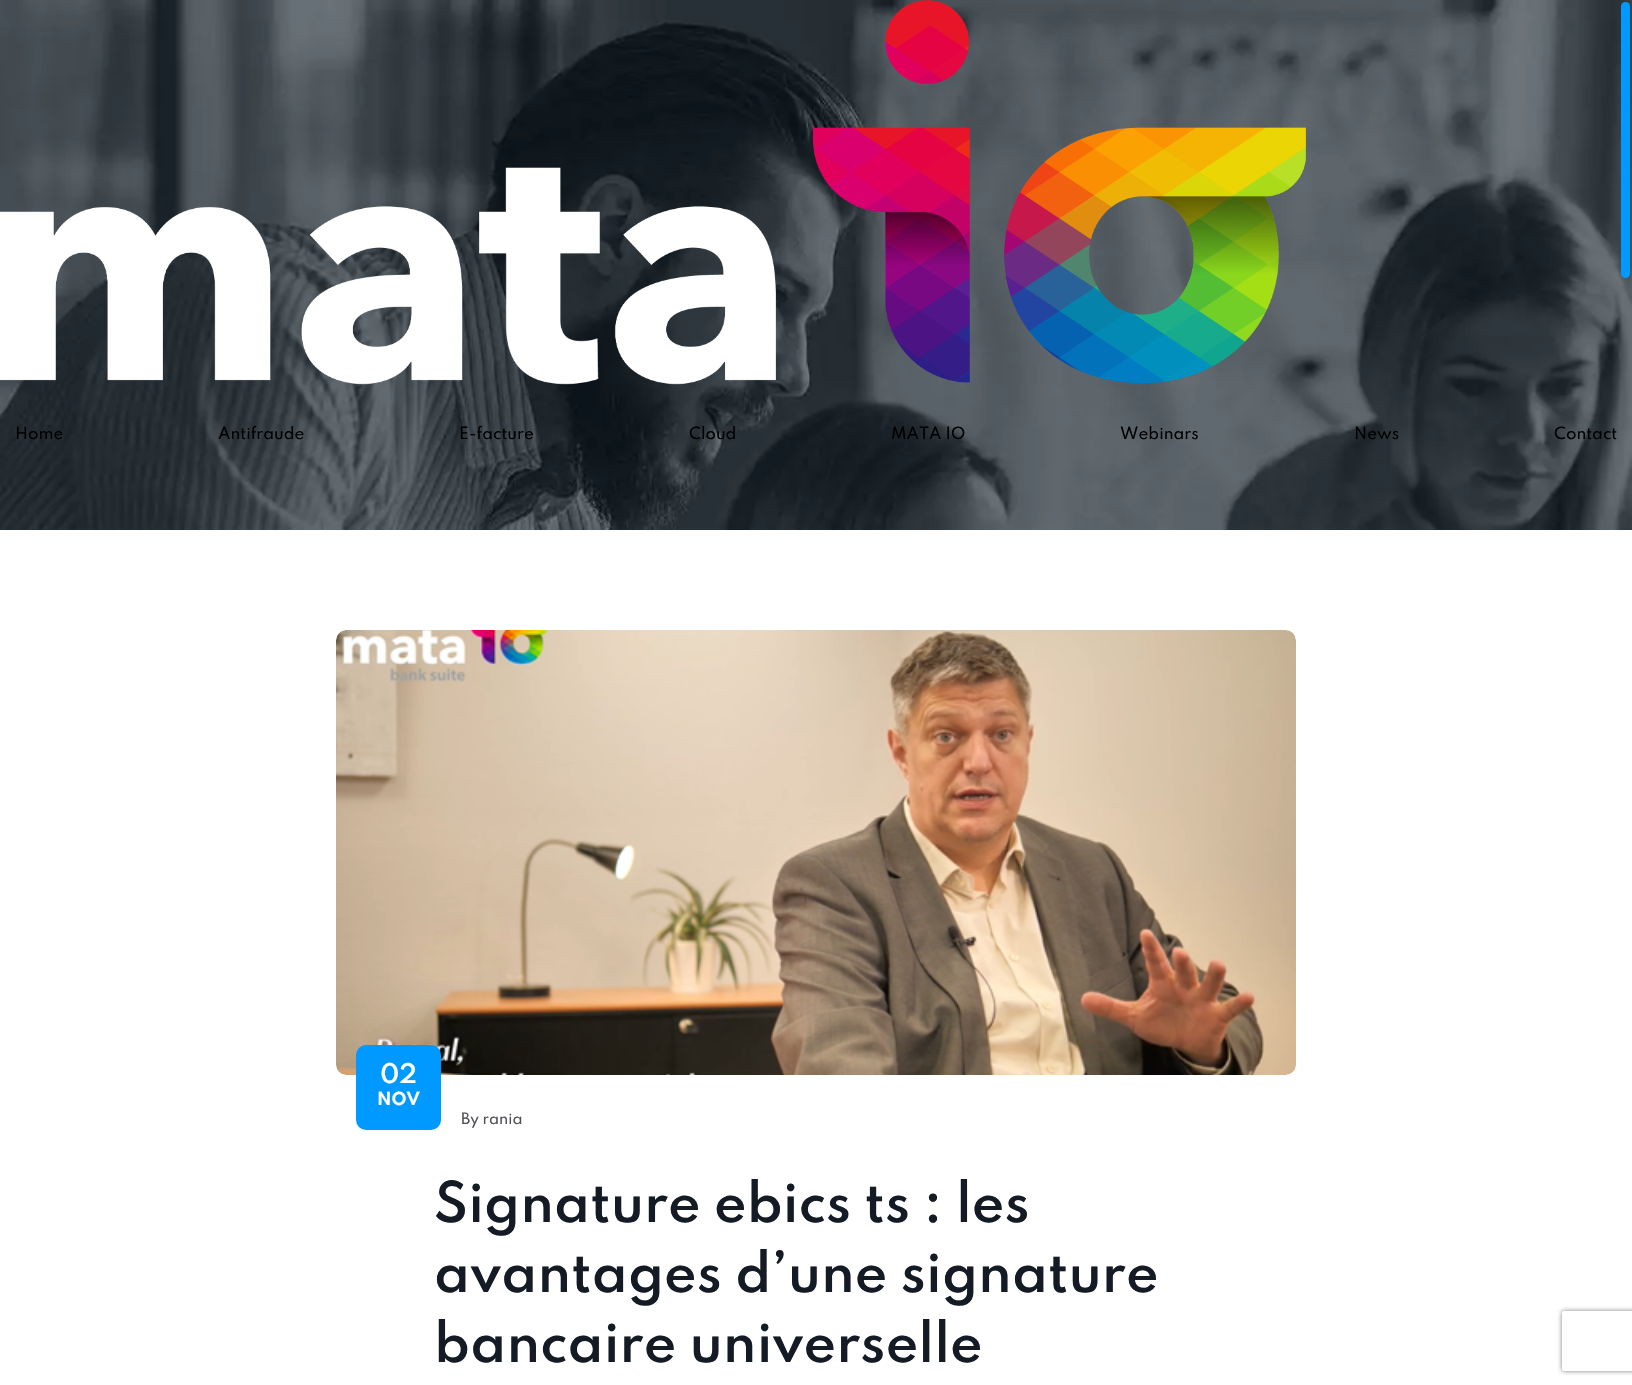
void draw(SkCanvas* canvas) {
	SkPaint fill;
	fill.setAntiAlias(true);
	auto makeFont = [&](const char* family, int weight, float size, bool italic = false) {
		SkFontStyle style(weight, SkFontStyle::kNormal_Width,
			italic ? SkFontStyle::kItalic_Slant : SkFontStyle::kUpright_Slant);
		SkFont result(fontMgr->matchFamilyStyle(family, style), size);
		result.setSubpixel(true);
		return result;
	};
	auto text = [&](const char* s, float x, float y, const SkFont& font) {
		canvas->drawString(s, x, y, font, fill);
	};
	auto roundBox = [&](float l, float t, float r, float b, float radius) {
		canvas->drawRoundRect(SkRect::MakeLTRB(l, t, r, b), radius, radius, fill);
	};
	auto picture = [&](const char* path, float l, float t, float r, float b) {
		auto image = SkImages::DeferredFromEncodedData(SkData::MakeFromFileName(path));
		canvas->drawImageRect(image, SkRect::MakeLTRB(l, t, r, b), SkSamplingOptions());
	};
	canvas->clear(0xFFFFFFFF);
	picture("image0.png", 0, 0, 1632, 530);
	fill.setColor(0xFF0099FF);
	roundBox(1621, 2, 1630, 278, 4.5f);
	picture("image1.png", 0, 0, 1306, 385);
	picture("image2.png", 336, 630, 1296, 1075);
	roundBox(356, 1045, 441, 1130, 10);
	canvas->save();
	canvas->clipPath(SkPathBuilder(SkPathFillType::kEvenOdd).moveTo(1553, 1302).lineTo(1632, 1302).lineTo(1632, 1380).lineTo(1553, 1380).close().moveTo(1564, 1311).lineTo(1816, 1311).cubicTo(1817, 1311, 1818, 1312, 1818, 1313).lineTo(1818, 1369).cubicTo(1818, 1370, 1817, 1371, 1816, 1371).lineTo(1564, 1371).cubicTo(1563, 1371, 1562, 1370, 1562, 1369).lineTo(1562, 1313).cubicTo(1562, 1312, 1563, 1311, 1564, 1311).close().detach(), true);
	fill.setColor(0xFF808080);
	fill.setMaskFilter(SkMaskFilter::MakeBlur(kNormal_SkBlurStyle, 2.5f));
	canvas->drawRoundRect(SkRect::MakeLTRB(1562, 1311, 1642, 1371), 2, 2, fill);
	fill.setMaskFilter(nullptr);
	canvas->restore();
	auto font1 = makeFont("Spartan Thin", 500, 15);
	fill.setColor(0xFF000000);
	text("Home", 15, 439, font1);
	text("Antifraude", 218, 439, font1);
	text("E-facture", 459, 439, font1);
	text("Cloud", 689, 439, font1);
	text("MATA IO", 891, 439, font1);
	text("Webinars", 1120, 439, font1);
	text("News", 1354, 439, font1);
	text("Contact", 1554, 439, font1);
	auto font2 = makeFont("Spartan Thin", 600, 24);
	fill.setColor(0xFFFFFFFF);
	text("02", 380, 1083, font2);
	auto font3 = makeFont("Spartan Thin", 700, 16);
	text("NOV", 377, 1105, font3);
	auto font4 = makeFont("Spartan Thin", 500, 14);
	fill.setColor(0xFF4E5055);
	text("By rania", 461, 1124, font4);
	auto font5 = makeFont("Spartan Thin", 600, 50);
	fill.setColor(0xFF141B25);
	text("Signature ebics ts : les", 434, 1222, font5);
	text("avantages d’une signature", 434, 1292, font5);
	text("bancaire universelle", 434, 1362, font5);
}
